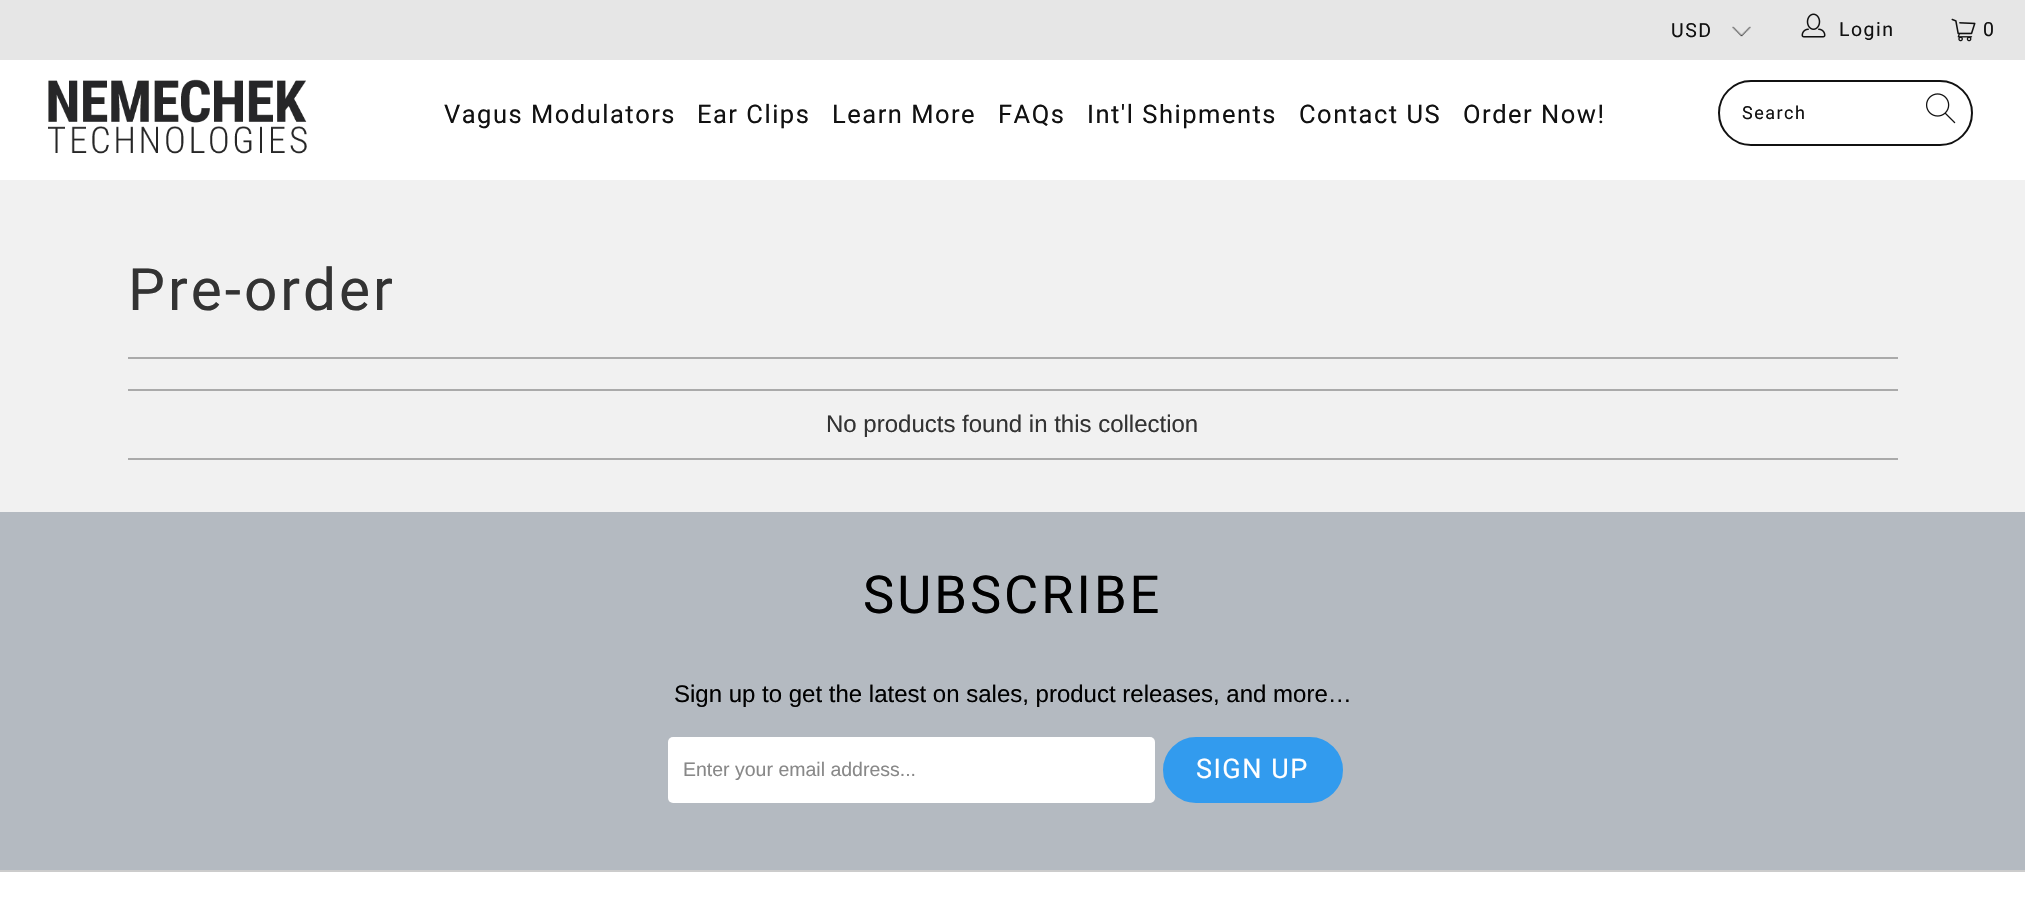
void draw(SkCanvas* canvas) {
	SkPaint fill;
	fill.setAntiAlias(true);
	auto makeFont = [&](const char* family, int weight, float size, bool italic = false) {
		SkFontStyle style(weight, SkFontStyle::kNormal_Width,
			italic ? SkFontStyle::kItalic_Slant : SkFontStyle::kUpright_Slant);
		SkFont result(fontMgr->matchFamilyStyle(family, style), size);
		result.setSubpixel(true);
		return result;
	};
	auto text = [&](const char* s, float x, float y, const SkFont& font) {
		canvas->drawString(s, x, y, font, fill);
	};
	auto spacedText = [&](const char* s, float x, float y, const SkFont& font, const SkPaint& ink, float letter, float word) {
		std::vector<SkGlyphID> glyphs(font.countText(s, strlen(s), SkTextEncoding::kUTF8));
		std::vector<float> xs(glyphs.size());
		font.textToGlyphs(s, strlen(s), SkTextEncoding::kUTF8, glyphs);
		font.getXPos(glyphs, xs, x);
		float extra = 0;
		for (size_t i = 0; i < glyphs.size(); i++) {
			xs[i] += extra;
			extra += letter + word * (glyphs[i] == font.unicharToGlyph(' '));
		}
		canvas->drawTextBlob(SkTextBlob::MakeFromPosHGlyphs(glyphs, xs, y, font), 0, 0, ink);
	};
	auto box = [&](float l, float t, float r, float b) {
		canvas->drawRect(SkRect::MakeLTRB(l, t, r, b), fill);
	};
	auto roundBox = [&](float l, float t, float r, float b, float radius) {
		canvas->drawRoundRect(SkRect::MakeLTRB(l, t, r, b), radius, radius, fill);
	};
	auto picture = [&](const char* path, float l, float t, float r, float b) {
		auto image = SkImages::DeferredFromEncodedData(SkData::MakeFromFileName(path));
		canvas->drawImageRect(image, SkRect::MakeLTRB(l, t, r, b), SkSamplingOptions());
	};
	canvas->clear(0xFFF1F1F1);
	fill.setColor(0xFFE6E6E6);
	box(0, 0, 2025, 60);
	picture("image0.png", 1732, 26, 1751, 37);
	picture("image1.png", 1801, 13, 1826, 38);
	picture("image2.png", 1951, 18, 1976, 42);
	fill.setColor(0xFFFFFFFF);
	box(0, 60, 2025, 180);
	picture("image3.png", 48, 79, 307, 154);
	fill.setStyle(SkPaint::kStroke_Style);
	fill.setStrokeWidth(2);
	fill.setColor(0xFF111111);
	canvas->drawRoundRect(SkRect::MakeLTRB(1719, 81, 1972, 145), 32, 32, fill);
	picture("image4.png", 1926, 93, 1956, 124);
	fill.setStyle(SkPaint::kFill_Style);
	fill.setColor(0xFFAAAAAA);
	box(128, 357, 1898, 359);
	box(128, 389, 1898, 391);
	box(128, 458, 1898, 460);
	fill.setColor(0xFFB4BAC1);
	box(0, 512, 2025, 870);
	fill.setColor(0xFFFFFFFF);
	roundBox(668, 737, 1155, 803, 5);
	fill.setColor(0xFF329BEE);
	canvas->drawRoundRect(SkRect::MakeLTRB(1164, 738, 1342, 802), 32, 32, fill);
	fill.setStyle(SkPaint::kStroke_Style);
	canvas->drawRoundRect(SkRect::MakeLTRB(1164, 738, 1342, 802), 32, 32, fill);
	fill.setStyle(SkPaint::kFill_Style);
	fill.setColor(0xFFFFFFFF);
	box(0, 872, 2025, 905);
	fill.setColor(0xFFCCCCCC);
	box(0, 870, 2025, 872);
	auto font1 = makeFont("Roboto", 400, 19.5f);
	fill.setColor(0xFF111111);
	spacedText("USD", 1671, 37, font1, fill, 1.5f, 0);
	spacedText("Login", 1839, 36, font1, fill, 1.5f, 0);
	spacedText("0", 1983, 36, font1, fill, 1.5f, 0);
	auto font2 = makeFont("Roboto", 400, 25.5f);
	spacedText("Vagus Modulators", 444, 123, font2, fill, 1.5f, 0);
	spacedText("Ear Clips", 697, 123, font2, fill, 1.5f, 0);
	spacedText("Learn More", 832, 123, font2, fill, 1.5f, 0);
	spacedText("FAQs", 998, 123, font2, fill, 1.5f, 0);
	spacedText("Int'l Shipments", 1087, 123, font2, fill, 1.5f, 0);
	spacedText("Contact US", 1299, 123, font2, fill, 1.5f, 0);
	spacedText("Order Now!", 1463, 123, font2, fill, 1.5f, 0);
	auto font3 = makeFont("Roboto", 400, 18);
	spacedText("Search", 1742, 119, font3, fill, 1.5f, 0);
	auto font4 = makeFont("Roboto", 400, 58.5f);
	fill.setColor(0xFF333333);
	spacedText("Pre-order", 128, 310, font4, fill, 3, 0);
	auto font5 = makeFont("Liberation Sans", 400, 24);
	text("No products found in this collection", 826, 432, font5);
	auto font6 = makeFont("Roboto", 400, 52.5f);
	fill.setColor(0xFF000000);
	spacedText("SUBSCRIBE", 863, 613, font6, fill, 3, 0);
	text("Sign up to get the latest on sales, product releases, and more…", 674, 702, font5);
	auto font7 = makeFont("Liberation Sans", 400, 19.5f);
	fill.setColor(0xFF888888);
	text("Enter your email address...", 683, 776, font7);
	auto font8 = makeFont("Roboto", 400, 27);
	fill.setColor(0xFFFFFFFF);
	spacedText("SIGN UP", 1196, 778, font8, fill, 1.5f, 0);
}
